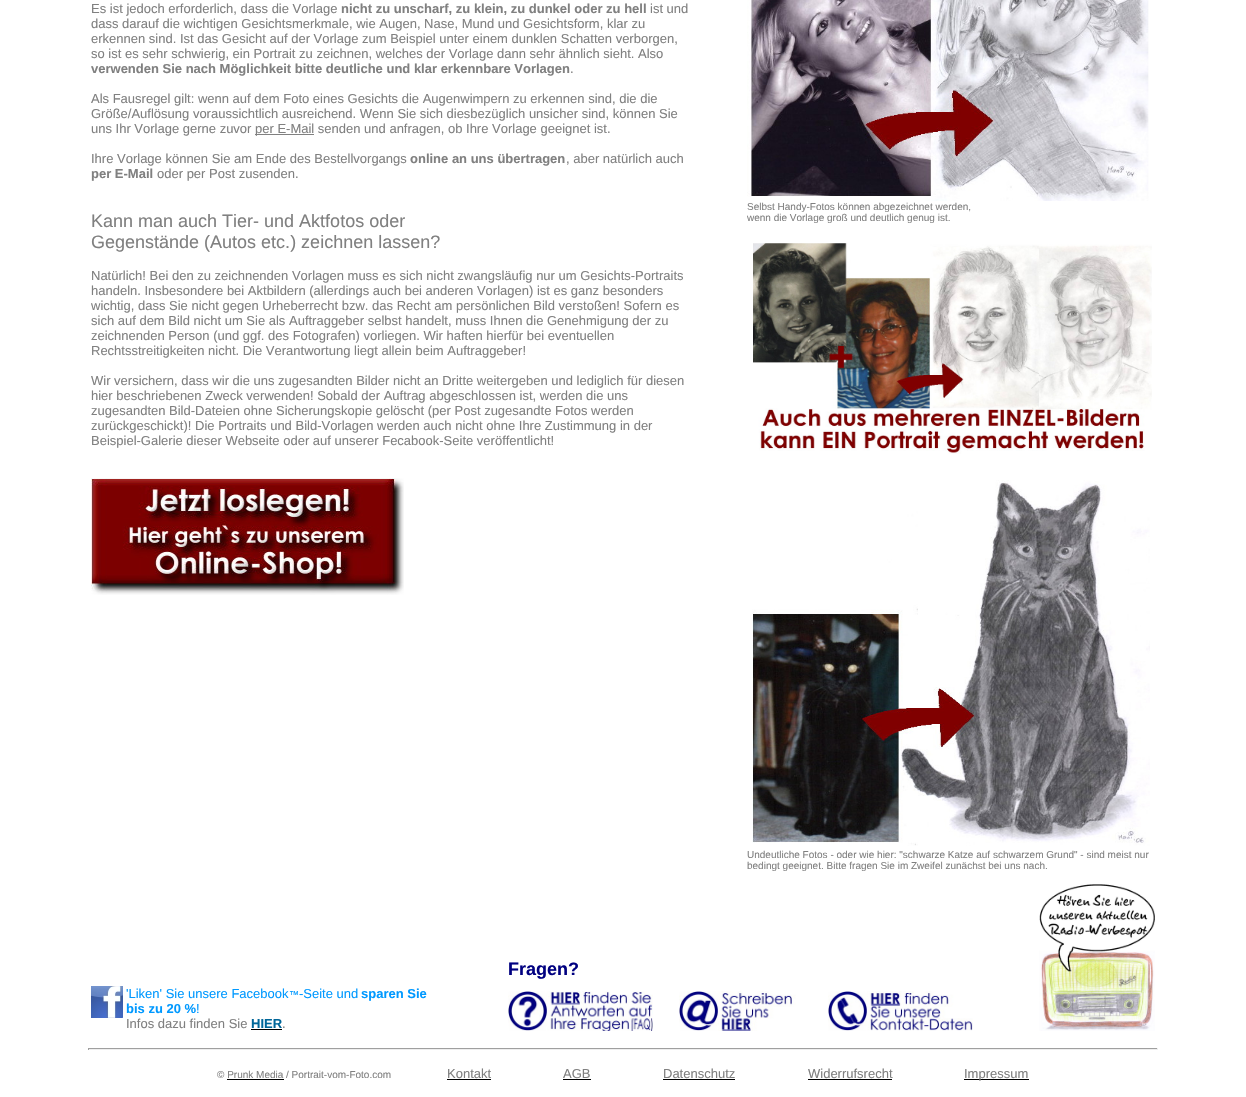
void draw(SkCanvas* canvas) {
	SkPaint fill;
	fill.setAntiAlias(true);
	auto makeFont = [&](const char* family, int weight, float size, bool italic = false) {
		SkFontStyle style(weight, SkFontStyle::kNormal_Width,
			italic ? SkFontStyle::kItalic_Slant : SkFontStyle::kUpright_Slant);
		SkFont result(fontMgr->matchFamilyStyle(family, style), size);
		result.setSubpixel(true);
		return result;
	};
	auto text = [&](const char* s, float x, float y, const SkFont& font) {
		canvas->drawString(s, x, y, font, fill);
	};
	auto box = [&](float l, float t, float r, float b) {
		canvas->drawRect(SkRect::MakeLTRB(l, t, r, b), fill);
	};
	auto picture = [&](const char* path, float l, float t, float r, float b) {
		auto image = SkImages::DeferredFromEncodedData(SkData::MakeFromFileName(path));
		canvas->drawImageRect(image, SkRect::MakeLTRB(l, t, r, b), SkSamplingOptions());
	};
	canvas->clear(0xFFFFFFFF);
	fill.setColor(0xFF808080);
	box(255, 134, 314, 135);
	picture("image0.png", 91, 478, 404, 595);
	picture("image1.png", 747, 0, 1149, 201);
	picture("image2.png", 753, 243, 1152, 454);
	picture("image3.png", 752, 480, 1150, 846);
	picture("image4.png", 508, 991, 653, 1031);
	picture("image5.png", 1039, 884, 1155, 1031);
	picture("image6.png", 91, 986, 123, 1018);
	fill.setColor(0xFF000000);
	box(251, 1029, 282, 1030);
	picture("image7.png", 679, 991, 796, 1031);
	picture("image8.png", 828, 991, 973, 1031);
	fill.setColor(0xFF9F9F9F);
	box(88, 1048, 1158, 1049);
	fill.setColor(0xFFEEEEEE);
	box(1157, 1048, 1158, 1050);
	box(88, 1049, 1158, 1050);
	fill.setColor(0xFF9F9F9F);
	box(88, 1048, 89, 1050);
	fill.setColor(0xFF000000);
	box(447, 1079, 491, 1080);
	box(563, 1079, 591, 1080);
	box(663, 1079, 735, 1080);
	box(808, 1079, 892, 1080);
	box(964, 1079, 1029, 1080);
	box(227, 1079, 284, 1080);
	auto font1 = makeFont("Liberation Sans", 400, 13);
	fill.setColor(0xFF808080);
	text("Es ist jedoch erforderlich, dass die Vorlage", 91, 13, font1);
	auto font2 = makeFont("Liberation Sans", 700, 13);
	text("nicht zu unscharf, zu klein, zu dunkel oder zu hell", 341, 13, font2);
	text("ist und", 650, 13, font1);
	text("dass darauf die wichtigen Gesichtsmerkmale, wie Augen, Nase, Mund und Gesichtsform, klar zu", 91, 28, font1);
	text("erkennen sind. Ist das Gesicht auf der Vorlage zum Beispiel unter einem dunklen Schatten verborgen,", 91, 43, font1);
	text("so ist es sehr schwierig, ein Portrait zu zeichnen, welches der Vorlage dann sehr ähnlich sieht. Also", 91, 58, font1);
	text("verwenden Sie nach Möglichkeit bitte deutliche und klar erkennbare Vorlagen", 91, 73, font2);
	text(".", 570, 73, font1);
	text("Als Fausregel gilt: wenn auf dem Foto eines Gesichts die Augenwimpern zu erkennen sind, die die", 91, 103, font1);
	text("Größe/Auflösung voraussichtlich ausreichend. Wenn Sie sich diesbezüglich unsicher sind, können Sie", 91, 118, font1);
	text("uns Ihr Vorlage gerne zuvor", 91, 133, font1);
	text("per E-Mail senden und anfragen, ob Ihre Vorlage geeignet ist.", 255, 133, font1);
	text("Ihre Vorlage können Sie am Ende des Bestellvorgangs", 91, 163, font1);
	text("online an uns übertragen", 410, 163, font2);
	text(", aber natürlich auch", 566, 163, font1);
	text("per E-Mail", 91, 178, font2);
	text("oder per Post zusenden.", 157, 178, font1);
	auto font3 = makeFont("Liberation Sans", 400, 18);
	text("Kann man auch Tier- und Aktfotos oder", 91, 227, font3);
	text("Gegenstände (Autos etc.) zeichnen lassen?", 91, 248, font3);
	text("Natürlich! Bei den zu zeichnenden Vorlagen muss es sich nicht zwangsläufig nur um Gesichts-Portraits", 91, 280, font1);
	text("handeln. Insbesondere bei Aktbildern (allerdings auch bei anderen Vorlagen) ist es ganz besonders", 91, 295, font1);
	text("wichtig, dass Sie nicht gegen Urheberrecht bzw. das Recht am persönlichen Bild verstoßen! Sofern es", 91, 310, font1);
	text("sich auf dem Bild nicht um Sie als Auftraggeber selbst handelt, muss Ihnen die Genehmigung der zu", 91, 325, font1);
	text("zeichnenden Person (und ggf. des Fotografen) vorliegen. Wir haften hierfür bei eventuellen", 91, 340, font1);
	text("Rechtsstreitigkeiten nicht. Die Verantwortung liegt allein beim Auftraggeber!", 91, 355, font1);
	text("Wir versichern, dass wir die uns zugesandten Bilder nicht an Dritte weitergeben und lediglich für diesen", 91, 385, font1);
	text("hier beschriebenen Zweck verwenden! Sobald der Auftrag abgeschlossen ist, werden die uns", 91, 400, font1);
	text("zugesandten Bild-Dateien ohne Sicherungskopie gelöscht (per Post zugesandte Fotos werden", 91, 415, font1);
	text("zurückgeschickt)! Die Portraits und Bild-Vorlagen werden auch nicht ohne Ihre Zustimmung in der", 91, 430, font1);
	text("Beispiel-Galerie dieser Webseite oder auf unserer Fecabook-Seite veröffentlicht!", 91, 445, font1);
	auto font4 = makeFont("Liberation Sans", 400, 10);
	text("Selbst Handy-Fotos können abgezeichnet werden,", 747, 210, font4);
	text("wenn die Vorlage groß und deutlich genug ist.", 747, 221, font4);
	text("Undeutliche Fotos - oder wie hier: \"schwarze Katze auf schwarzem Grund\" - sind meist nur", 747, 858, font4);
	text("bedingt geeignet. Bitte fragen Sie im Zweifel zunächst bei uns nach.", 747, 869, font4);
	auto font5 = makeFont("Liberation Sans", 700, 18);
	fill.setColor(0xFF000080);
	text("Fragen?", 508, 975, font5);
	fill.setColor(0xFF0099FF);
	text("'Liken' Sie unsere Facebook", 126, 998, font1);
	text("™", 289, 998, font4);
	text("-Seite und", 299, 998, font1);
	text("sparen Sie", 361, 998, font2);
	text("bis zu 20 %", 126, 1013, font2);
	text("!", 196, 1013, font1);
	fill.setColor(0xFF808080);
	text("Infos dazu finden Sie", 126, 1028, font1);
	fill.setColor(0xFF006699);
	text("HIER", 251, 1028, font2);
	fill.setColor(0xFF808080);
	text(".", 282, 1028, font1);
	text("© Prunk Media / Portrait-vom-Foto.com", 217, 1078, font4);
	text("Kontakt", 447, 1078, font1);
	text("AGB", 563, 1078, font1);
	text("Datenschutz", 663, 1078, font1);
	text("Widerrufsrecht", 808, 1078, font1);
	text("Impressum", 964, 1078, font1);
}
